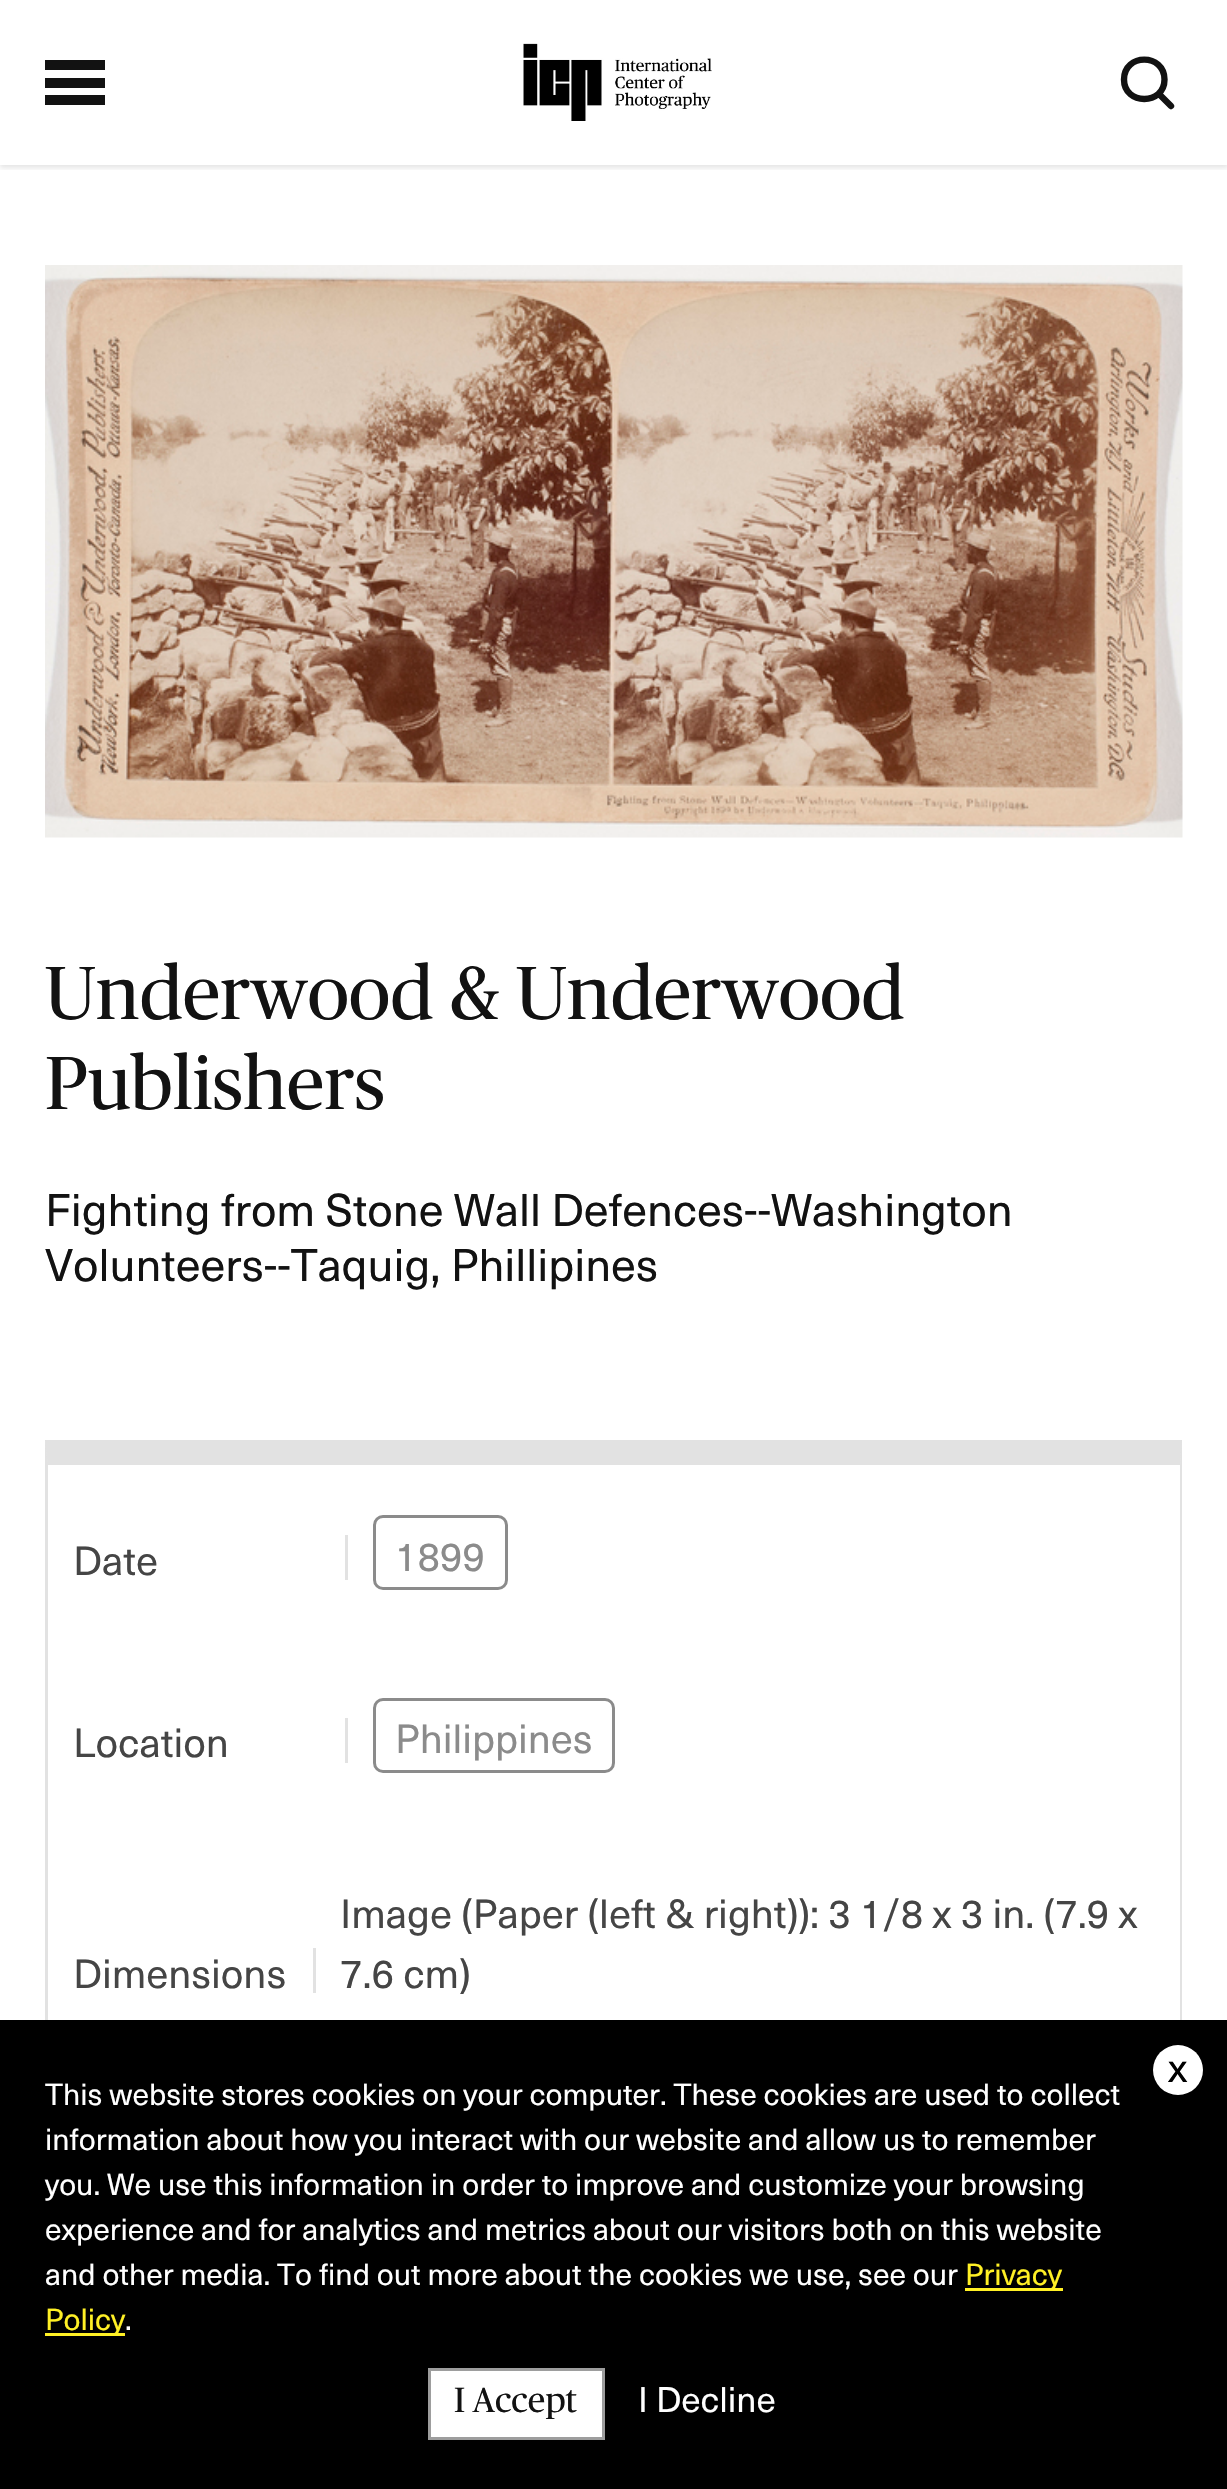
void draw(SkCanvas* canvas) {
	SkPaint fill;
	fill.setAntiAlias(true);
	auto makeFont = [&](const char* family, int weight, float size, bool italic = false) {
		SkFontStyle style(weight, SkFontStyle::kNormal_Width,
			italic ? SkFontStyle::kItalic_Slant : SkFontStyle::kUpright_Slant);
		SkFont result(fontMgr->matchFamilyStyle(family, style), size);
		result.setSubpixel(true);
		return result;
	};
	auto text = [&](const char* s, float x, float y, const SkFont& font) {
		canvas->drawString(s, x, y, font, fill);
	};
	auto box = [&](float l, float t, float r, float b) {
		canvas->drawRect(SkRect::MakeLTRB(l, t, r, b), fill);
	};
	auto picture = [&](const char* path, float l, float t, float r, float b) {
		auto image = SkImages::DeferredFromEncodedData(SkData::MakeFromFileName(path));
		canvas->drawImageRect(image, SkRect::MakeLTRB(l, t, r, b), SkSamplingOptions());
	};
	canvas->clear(0xFFFFFFFF);
	canvas->save();
	canvas->clipRect(SkRect::MakeLTRB(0, 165, 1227, 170));
	fill.setColor(0x1A000000);
	fill.setMaskFilter(SkMaskFilter::MakeBlur(kNormal_SkBlurStyle, 2.5f));
	canvas->drawRect(SkRect::MakeLTRB(0, 3, 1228, 168), fill);
	fill.setMaskFilter(nullptr);
	canvas->restore();
	fill.setColor(0xFF121212);
	box(45, 60, 105, 70);
	box(45, 78, 105, 88);
	box(45, 95, 105, 105);
	picture("image0.png", 523, 43, 712, 121);
	fill.setStyle(SkPaint::kStroke_Style);
	fill.setStrokeWidth(6.4f);
	fill.setStrokeCap(SkPaint::kRound_Cap);
	fill.setStrokeJoin(SkPaint::kRound_Join);
	canvas->drawPath(SkPathBuilder().moveTo(1171, 106).lineTo(1159, 94).moveTo(1124, 79.5f).cubicTo(1124, 53, 1164.5f, 53, 1164.5f, 79.5f).cubicTo(1164.5f, 105.5f, 1124, 105.5f, 1124, 79.5f).close().detach(), fill);
	picture("image1.png", 45, 265, 1183, 838);
	fill.setStyle(SkPaint::kFill_Style);
	fill.setColor(0xFFE2E2E2);
	canvas->drawPath(SkPathBuilder().moveTo(45, 1440).lineTo(1182, 1440).lineTo(1180, 1465).lineTo(48, 1465).close().detach(), fill);
	fill.setColor(0x336E6E6E);
	canvas->drawPath(SkPathBuilder().moveTo(1182, 1440).lineTo(1182, 2295).lineTo(1180, 2292).lineTo(1180, 1465).close().detach(), fill);
	canvas->drawPath(SkPathBuilder().moveTo(45, 2295).lineTo(45, 1440).lineTo(48, 1465).lineTo(48, 2292).close().detach(), fill);
	fill.setColor(0xFFE2E2E2);
	box(345, 1535, 348, 1580);
	fill.setStyle(SkPaint::kStroke_Style);
	fill.setStrokeWidth(3);
	fill.setStrokeCap(SkPaint::kButt_Cap);
	fill.setStrokeJoin(SkPaint::kMiter_Join);
	fill.setColor(0xFF8B8B8B);
	canvas->drawRoundRect(SkRect::MakeLTRB(374.5f, 1516.5f, 506.5f, 1588.5f), 8.5f, 8.5f, fill);
	fill.setStyle(SkPaint::kFill_Style);
	fill.setColor(0xFFE2E2E2);
	box(345, 1718, 348, 1763);
	fill.setStyle(SkPaint::kStroke_Style);
	fill.setColor(0xFF8B8B8B);
	canvas->drawRoundRect(SkRect::MakeLTRB(374.5f, 1699.5f, 613.5f, 1771.5f), 8.5f, 8.5f, fill);
	fill.setStyle(SkPaint::kFill_Style);
	fill.setColor(0xFFE2E2E2);
	box(313, 1948, 316, 1993);
	fill.setColor(0xFF000000);
	box(0, 2020, 1227, 2489);
	fill.setColor(0xFFFFFFFF);
	canvas->drawCircle(1178, 2070, 25, fill);
	fill.setColor(0xFFFFF025);
	box(965, 2288, 1063, 2291);
	box(45, 2333, 125, 2336);
	fill.setColor(0xFFFFFFFF);
	canvas->drawRect(SkRect::MakeLTRB(429.5f, 2369.5f, 603.5f, 2438.5f), fill);
	fill.setStyle(SkPaint::kStroke_Style);
	fill.setColor(0xFF9D9D9D);
	canvas->drawRect(SkRect::MakeLTRB(429.5f, 2369.5f, 603.5f, 2438.5f), fill);
	auto font1 = makeFont("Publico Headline", 400, 75);
	fill.setStyle(SkPaint::kFill_Style);
	fill.setColor(0xFF121212);
	text("Underwood & Underwood", 45, 1019, font1);
	text("Publishers", 45, 1109, font1);
	auto font2 = makeFont("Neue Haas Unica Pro", 400, 45);
	text("Fighting from Stone Wall Defences--Washington", 45, 1226, font2);
	text("Volunteers--Taquig, Phillipines", 45, 1281, font2);
	auto font3 = makeFont("Neue Haas Unica Pro", 400, 40);
	fill.setColor(0xFF454545);
	text("Date", 73, 1575, font3);
	fill.setColor(0xFF8B8B8B);
	text("1899", 395, 1571, font3);
	fill.setColor(0xFF454545);
	text("Location", 73, 1757, font3);
	fill.setColor(0xFF8B8B8B);
	text("Philippines", 395, 1753, font3);
	fill.setColor(0xFF454545);
	text("Dimensions", 73, 1988, font3);
	text("Image (Paper (left & right)): 3 1/8 x 3 in. (7.9 x", 340, 1928, font3);
	text("7.6 cm)", 340, 1988, font3);
	fill.setColor(0xFF000000);
	text("x", 1168, 2082, font3);
	auto font4 = makeFont("Neue Haas Unica Pro", 400, 30);
	fill.setColor(0xFFFFFFFF);
	text("This website stores cookies on your computer. These cookies are used to collect", 45, 2105, font4);
	text("information about how you interact with our website and allow us to remember", 45, 2150, font4);
	text("you. We use this information in order to improve and customize your browsing", 45, 2195, font4);
	text("experience and for analytics and metrics about our visitors both on this website", 45, 2240, font4);
	text("and other media. To find out more about the cookies we use, see our", 45, 2285, font4);
	fill.setColor(0xFFFFF025);
	text("Privacy", 965, 2285, font4);
	text("Policy", 45, 2330, font4);
	fill.setColor(0xFFFFFFFF);
	text(".", 125, 2330, font4);
	auto font5 = makeFont("Publico Headline", 400, 35);
	fill.setColor(0xFF121212);
	text("I Accept", 454, 2412, font5);
	auto font6 = makeFont("Neue Haas Unica Pro", 400, 35);
	fill.setColor(0xFFFFFFFF);
	text("I Decline", 638, 2412, font6);
}
